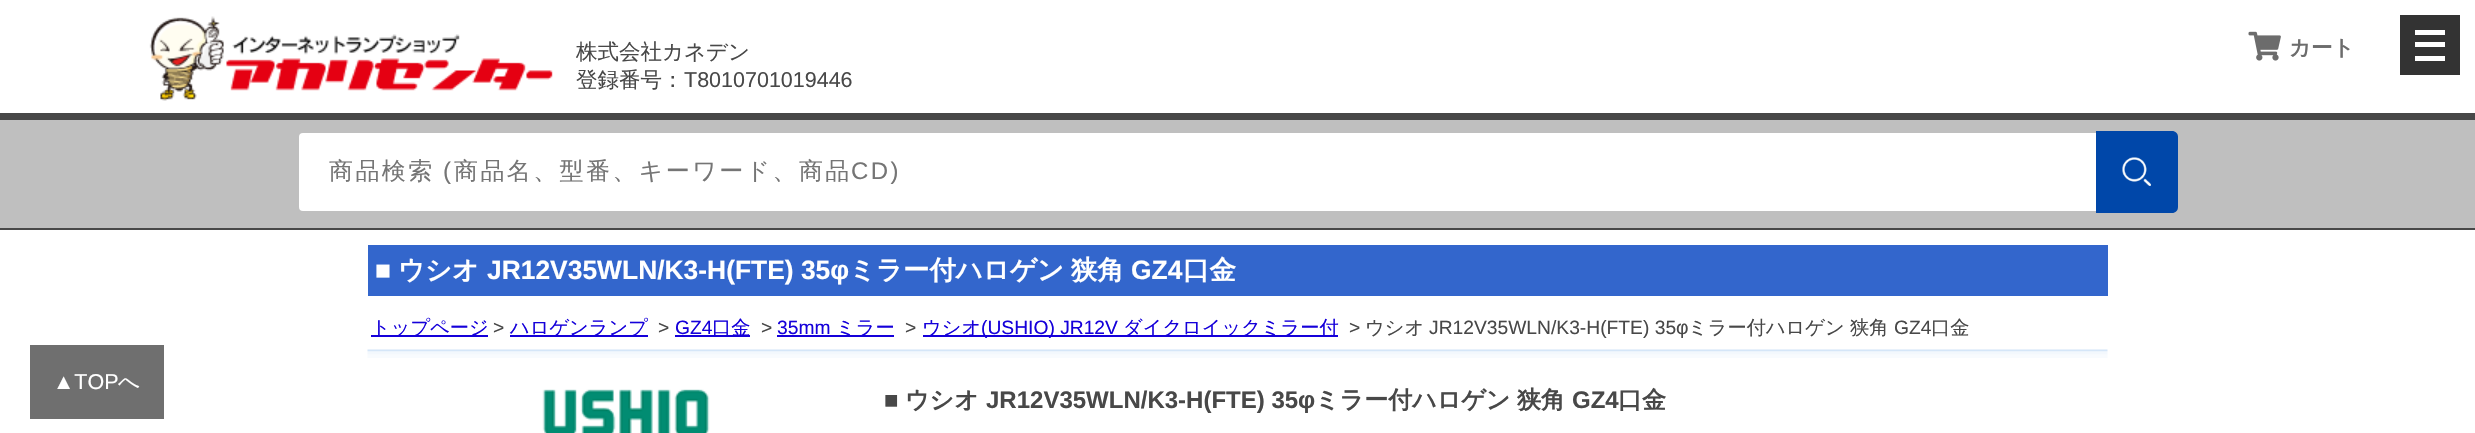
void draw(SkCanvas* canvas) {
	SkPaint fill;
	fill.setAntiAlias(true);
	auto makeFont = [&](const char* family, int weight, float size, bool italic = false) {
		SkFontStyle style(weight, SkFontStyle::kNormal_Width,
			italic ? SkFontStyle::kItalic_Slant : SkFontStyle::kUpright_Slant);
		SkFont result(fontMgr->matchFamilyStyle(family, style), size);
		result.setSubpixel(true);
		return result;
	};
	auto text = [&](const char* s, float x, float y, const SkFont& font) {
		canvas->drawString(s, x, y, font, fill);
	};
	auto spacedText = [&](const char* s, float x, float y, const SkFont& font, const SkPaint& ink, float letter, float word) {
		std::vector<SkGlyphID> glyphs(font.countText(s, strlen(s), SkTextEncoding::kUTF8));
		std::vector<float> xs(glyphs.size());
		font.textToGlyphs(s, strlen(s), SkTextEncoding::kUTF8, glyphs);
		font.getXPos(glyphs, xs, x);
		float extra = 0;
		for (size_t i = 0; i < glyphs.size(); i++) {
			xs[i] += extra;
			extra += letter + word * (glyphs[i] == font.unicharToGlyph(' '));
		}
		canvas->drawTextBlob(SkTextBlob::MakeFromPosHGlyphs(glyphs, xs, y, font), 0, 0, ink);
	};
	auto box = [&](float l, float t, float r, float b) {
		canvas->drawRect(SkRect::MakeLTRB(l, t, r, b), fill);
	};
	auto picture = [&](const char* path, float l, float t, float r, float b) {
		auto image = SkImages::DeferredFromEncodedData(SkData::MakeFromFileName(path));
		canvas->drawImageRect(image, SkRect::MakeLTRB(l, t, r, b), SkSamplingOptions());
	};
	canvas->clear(0xFFFFFFFF);
	fill.setColor(0xFF484848);
	box(0, 113, 2475, 120);
	picture("image0.png", 149, 16, 553, 101);
	picture("image1.png", 2248, 31, 2281, 61);
	fill.setColor(0xFF333333);
	box(2400, 15, 2460, 75);
	fill.setColor(0xFFFFFFFF);
	box(2415, 30, 2445, 35);
	box(2415, 42, 2445, 47);
	box(2415, 56, 2445, 61);
	fill.setColor(0xFFBFBFBF);
	box(0, 120, 2475, 228);
	fill.setColor(0xFF484848);
	box(0, 228, 2475, 230);
	fill.setColor(0xFFFFFFFF);
	canvas->drawRoundRect(SkRect::MakeLTRB(298, 132, 2177, 212), 5, 5, fill);
	fill.setStyle(SkPaint::kStroke_Style);
	fill.setStrokeWidth(2);
	fill.setColor(0xFFBFBFBF);
	canvas->drawRoundRect(SkRect::MakeLTRB(298, 132, 2177, 212), 5, 5, fill);
	fill.setStyle(SkPaint::kFill_Style);
	fill.setColor(0xFF0047A9);
	canvas->drawPath(SkPathBuilder().moveTo(2096, 131).lineTo(2172, 131).cubicTo(2175.5f, 131, 2178, 133.5f, 2178, 137).lineTo(2178, 207).cubicTo(2178, 210.5f, 2175.5f, 213, 2172, 213).lineTo(2096, 213).close().detach(), fill);
	picture("image2.png", 2122, 157, 2151, 186);
	fill.setColor(0xFF6F6F6F);
	box(30, 345, 164, 419);
	picture("image3.png", 367, 349, 2108, 358);
	fill.setColor(0xFF3366CC);
	box(368, 245, 2108, 296);
	fill.setColor(0xFF1500DA);
	box(371, 335, 488, 337);
	box(510, 335, 648, 337);
	box(675, 335, 750, 337);
	box(777, 335, 894, 337);
	box(923, 335, 1338, 337);
	picture("image4.png", 542, 389, 710, 433);
	auto font1 = makeFont("WenQuanYi Zen Hei", 500, 21.5f);
	fill.setColor(0xFF484848);
	text("株式会社カネデン", 576, 59, font1);
	text("登録番号：", 576, 87, font1);
	auto font2 = makeFont("Liberation Sans", 400, 21.5f);
	text("T8010701019446", 684, 87, font2);
	auto font3 = makeFont("WenQuanYi Zen Hei", 700, 21.5f);
	fill.setColor(0xFF6C6C6C);
	text("カート", 2289, 55, font3);
	auto font4 = makeFont("WenQuanYi Zen Hei", 500, 24);
	fill.setColor(0xFF757575);
	spacedText("商品検索", 329, 179, font4, fill, 2.4f, 0);
	auto font5 = makeFont("Liberation Sans", 400, 24);
	spacedText("(", 443, 179, font5, fill, 2.4f, 0);
	spacedText("商品名、型番、キーワード、商品", 454, 179, font4, fill, 2.4f, 0);
	spacedText("CD)", 851, 179, font5, fill, 2.4f, 0);
	fill.setColor(0xFFFFFFFF);
	text("▲TOP", 53, 389, font2);
	text("へ", 118, 389, font1);
	auto font6 = makeFont("Liberation Sans", 700, 26.4f);
	text("■", 375, 279, font6);
	auto font7 = makeFont("WenQuanYi Zen Hei", 700, 26.4f);
	text("ウシオ", 398, 279, font7);
	text("JR12V35WLN/K3-H(FTE) 35φ", 487, 279, font6);
	text("ミラー付ハロゲン", 849, 279, font7);
	text("狭角", 1071, 279, font7);
	text("GZ4", 1131, 279, font6);
	text("口金", 1183, 279, font7);
	auto font8 = makeFont("WenQuanYi Zen Hei", 500, 19.25f);
	fill.setColor(0xFF1500DA);
	text("トップページ", 371, 334, font8);
	auto font9 = makeFont("Liberation Sans", 400, 19.25f);
	fill.setColor(0xFF484848);
	text(">", 493, 334, font9);
	fill.setColor(0xFF1500DA);
	text("ハロゲンランプ", 510, 334, font8);
	fill.setColor(0xFF484848);
	text(">", 658, 334, font9);
	fill.setColor(0xFF1500DA);
	text("GZ4", 675, 334, font9);
	text("口金", 712, 334, font8);
	fill.setColor(0xFF484848);
	text(">", 761, 334, font9);
	fill.setColor(0xFF1500DA);
	text("35mm", 777, 334, font9);
	text("ミラー", 836, 334, font8);
	fill.setColor(0xFF484848);
	text(">", 905, 334, font9);
	fill.setColor(0xFF1500DA);
	text("ウシオ", 922, 334, font8);
	text("(USHIO) JR12V", 981, 334, font9);
	text("ダイクロイックミラー付", 1123, 334, font8);
	fill.setColor(0xFF484848);
	text(">", 1349, 334, font9);
	text("ウシオ", 1365, 334, font8);
	text("JR12V35WLN/K3-H(FTE) 35φ", 1429, 334, font9);
	text("ミラー付ハロゲン", 1688, 334, font8);
	text("狭角", 1850, 334, font8);
	text("GZ4", 1894, 334, font9);
	text("口金", 1931, 334, font8);
	auto font10 = makeFont("Liberation Sans", 700, 24);
	text("■", 884, 408, font10);
	auto font11 = makeFont("WenQuanYi Zen Hei", 700, 24);
	text("ウシオ", 905, 408, font11);
	text("JR12V35WLN/K3-H(FTE) 35φ", 986, 408, font10);
	text("ミラー付ハロゲン", 1315, 408, font11);
	text("狭角", 1517, 408, font11);
	text("GZ4", 1572, 408, font10);
	text("口金", 1618, 408, font11);
}
